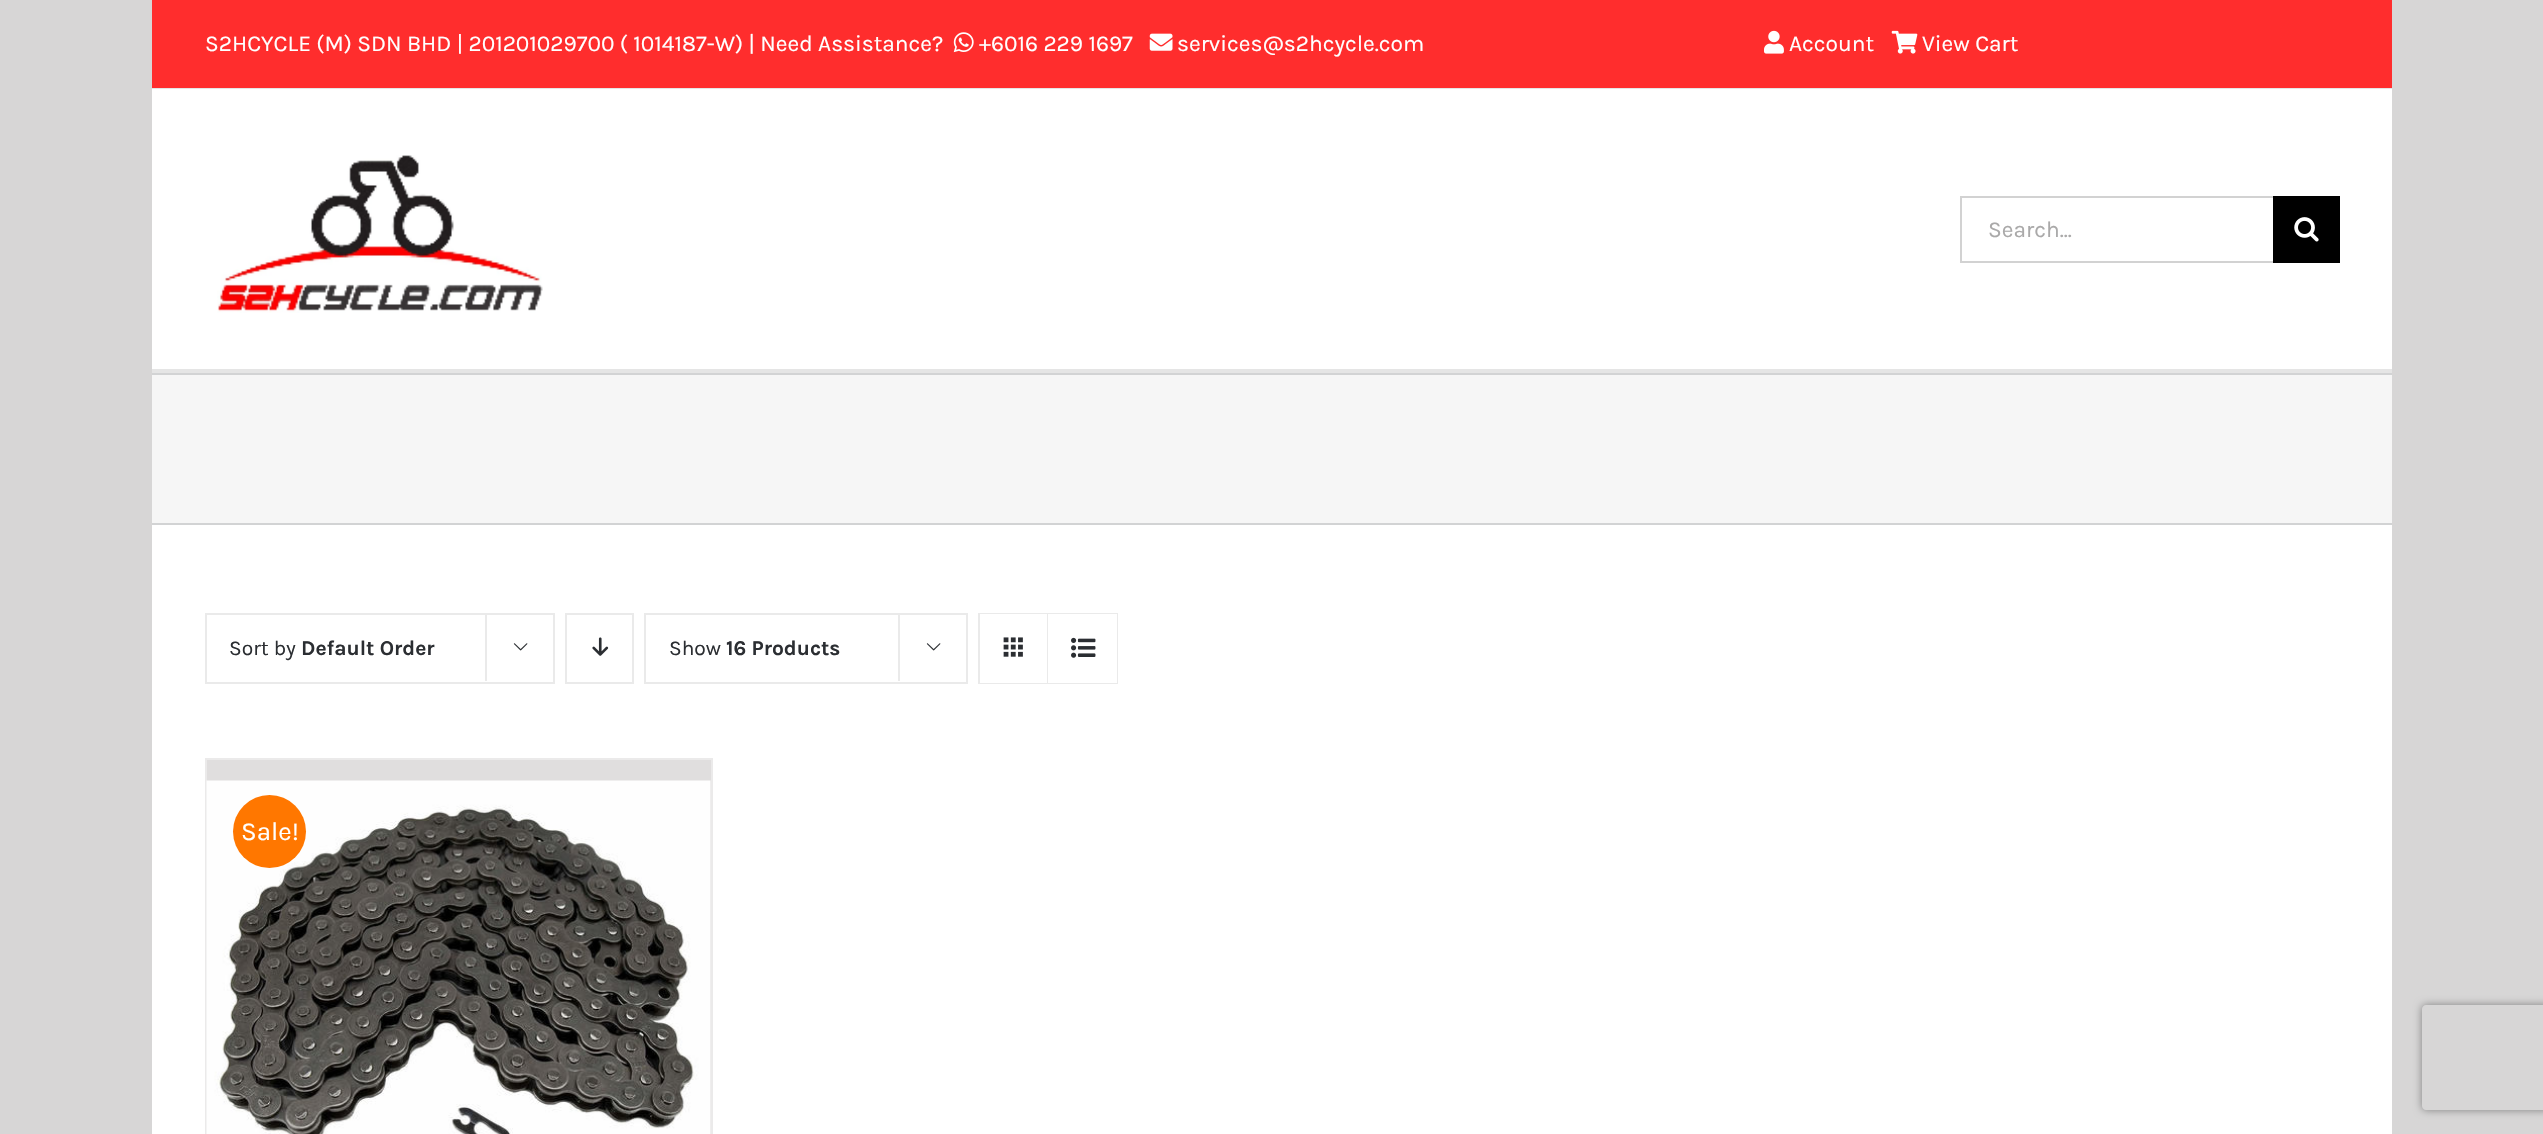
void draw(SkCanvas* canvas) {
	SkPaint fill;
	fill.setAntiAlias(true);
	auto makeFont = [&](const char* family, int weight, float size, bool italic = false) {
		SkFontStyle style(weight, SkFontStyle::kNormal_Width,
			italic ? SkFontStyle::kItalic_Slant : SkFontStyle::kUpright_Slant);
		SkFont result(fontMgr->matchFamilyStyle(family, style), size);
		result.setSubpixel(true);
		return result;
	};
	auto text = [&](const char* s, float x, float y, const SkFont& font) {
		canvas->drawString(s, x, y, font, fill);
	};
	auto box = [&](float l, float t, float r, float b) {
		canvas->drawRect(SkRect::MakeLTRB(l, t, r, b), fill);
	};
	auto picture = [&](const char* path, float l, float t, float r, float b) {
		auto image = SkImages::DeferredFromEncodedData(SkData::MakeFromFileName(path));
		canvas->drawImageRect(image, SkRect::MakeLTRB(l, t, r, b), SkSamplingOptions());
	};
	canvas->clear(0xFFD7D6D6);
	fill.setColor(0xFFFF2D2D);
	box(152, 0, 2392, 88);
	fill.setColor(0xFFE5E5E5);
	box(152, 88, 2392, 89);
	picture("image0.png", 953, 32, 974, 53);
	picture("image1.png", 1149, 33, 1173, 51);
	picture("image2.png", 1764, 30, 1784, 54);
	picture("image3.png", 1891, 30, 1918, 54);
	fill.setColor(0xFFFFFFFF);
	box(152, 89, 2392, 369);
	picture("image4.png", 217, 155, 543, 313);
	fill.setColor(0xFFD2D2D2);
	box(1960, 196, 2273, 198);
	box(1960, 261, 2273, 263);
	box(1960, 196, 1962, 263);
	fill.setColor(0xFF000000);
	box(2273, 196, 2340, 263);
	picture("image5.png", 2294, 217, 2319, 242);
	fill.setColor(0xFFE5E5E5);
	box(152, 369, 2392, 373);
	fill.setColor(0xFFF6F6F6);
	box(152, 375, 2392, 523);
	fill.setColor(0xFFD2D3D4);
	box(152, 373, 2392, 375);
	box(152, 523, 2392, 525);
	fill.setColor(0xFFFFFFFF);
	box(152, 525, 2392, 1134);
	fill.setStyle(SkPaint::kStroke_Style);
	fill.setStrokeWidth(2);
	fill.setColor(0xFFEAEAEA);
	canvas->drawRect(SkRect::MakeLTRB(206, 614, 554, 683), fill);
	fill.setStyle(SkPaint::kFill_Style);
	box(485, 613, 487, 681);
	picture("image6.png", 513, 643, 528, 651);
	fill.setStyle(SkPaint::kStroke_Style);
	canvas->drawRect(SkRect::MakeLTRB(566, 614, 633, 683), fill);
	picture("image7.png", 592, 637, 609, 656);
	canvas->drawRect(SkRect::MakeLTRB(645, 614, 967, 683), fill);
	fill.setStyle(SkPaint::kFill_Style);
	box(898, 613, 900, 681);
	picture("image6.png", 926, 643, 941, 651);
	fill.setStyle(SkPaint::kStroke_Style);
	canvas->drawRect(SkRect::MakeLTRB(979, 614, 1117, 683), fill);
	fill.setStyle(SkPaint::kFill_Style);
	fill.setColor(0xFFFFFFFF);
	box(980, 614, 1047, 683);
	fill.setColor(0xFFEAEAEA);
	box(1047, 614, 1048, 683);
	picture("image8.png", 1003, 637, 1023, 657);
	fill.setColor(0xFFFFFFFF);
	box(1048, 614, 1117, 683);
	picture("image9.png", 1071, 637, 1096, 658);
	fill.setColor(0xFFEBEAEA);
	box(205, 758, 712, 760);
	box(711, 758, 713, 1134);
	box(205, 758, 207, 1134);
	fill.setColor(0xFFE0DEDE);
	box(207, 760, 711, 1134);
	picture("image10.png", 206, 780, 711, 1134);
	fill.setColor(0xFFFF7700);
	canvas->drawCircle(269.5f, 831.5f, 36.5f, fill);
	canvas->save();
	canvas->clipPath(SkPathBuilder(SkPathFillType::kEvenOdd).moveTo(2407, 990).lineTo(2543, 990).lineTo(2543, 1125).lineTo(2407, 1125).close().moveTo(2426, 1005).lineTo(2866, 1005).cubicTo(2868, 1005, 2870, 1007, 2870, 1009).lineTo(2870, 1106).cubicTo(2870, 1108, 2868, 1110, 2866, 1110).lineTo(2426, 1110).cubicTo(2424, 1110, 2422, 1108, 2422, 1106).lineTo(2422, 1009).cubicTo(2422, 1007, 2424, 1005, 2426, 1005).close().detach(), true);
	fill.setColor(0xFF808080);
	fill.setMaskFilter(SkMaskFilter::MakeBlur(kNormal_SkBlurStyle, 4.5f));
	canvas->drawRoundRect(SkRect::MakeLTRB(2422, 1005, 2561, 1110), 4, 4, fill);
	fill.setMaskFilter(nullptr);
	canvas->restore();
	auto font1 = makeFont("Karla", 400, 22.75f);
	fill.setColor(0xFFFFFFFF);
	text("S2HCYCLE (M) SDN BHD | 201201029700 ( 1014187-W) | Need Assistance?", 205, 51, font1);
	text("+6016 229 1697", 979, 51, font1);
	text("services@s2hcycle.com", 1177, 51, font1);
	text("Account", 1789, 51, font1);
	text("View Cart", 1922, 51, font1);
	fill.setColor(0xFFAAA9A9);
	text("Search...", 1988, 237, font1);
	auto font2 = makeFont("Karla", 400, 21);
	fill.setColor(0xFF2B2E32);
	text("Sort by", 229, 655, font2);
	auto font3 = makeFont("Karla", 700, 21);
	text("Default Order", 301, 655, font3);
	text("Show", 669, 655, font2);
	text("16 Products", 726, 655, font3);
	auto font4 = makeFont("Karla", 400, 26);
	fill.setColor(0xFFFFFFFF);
	text("Sale!", 241, 840, font4);
}
